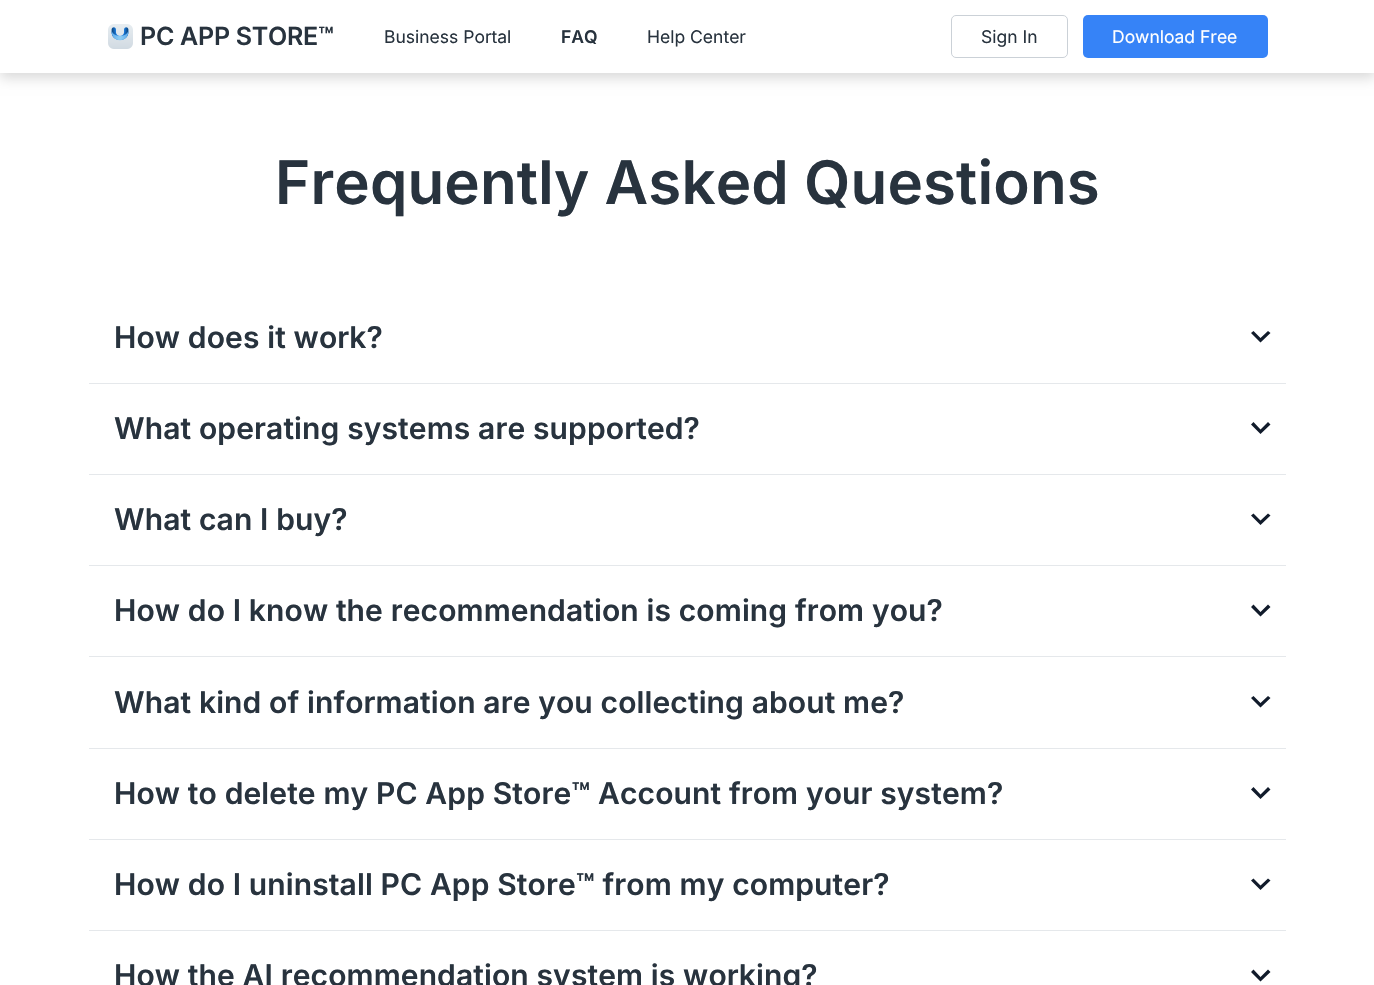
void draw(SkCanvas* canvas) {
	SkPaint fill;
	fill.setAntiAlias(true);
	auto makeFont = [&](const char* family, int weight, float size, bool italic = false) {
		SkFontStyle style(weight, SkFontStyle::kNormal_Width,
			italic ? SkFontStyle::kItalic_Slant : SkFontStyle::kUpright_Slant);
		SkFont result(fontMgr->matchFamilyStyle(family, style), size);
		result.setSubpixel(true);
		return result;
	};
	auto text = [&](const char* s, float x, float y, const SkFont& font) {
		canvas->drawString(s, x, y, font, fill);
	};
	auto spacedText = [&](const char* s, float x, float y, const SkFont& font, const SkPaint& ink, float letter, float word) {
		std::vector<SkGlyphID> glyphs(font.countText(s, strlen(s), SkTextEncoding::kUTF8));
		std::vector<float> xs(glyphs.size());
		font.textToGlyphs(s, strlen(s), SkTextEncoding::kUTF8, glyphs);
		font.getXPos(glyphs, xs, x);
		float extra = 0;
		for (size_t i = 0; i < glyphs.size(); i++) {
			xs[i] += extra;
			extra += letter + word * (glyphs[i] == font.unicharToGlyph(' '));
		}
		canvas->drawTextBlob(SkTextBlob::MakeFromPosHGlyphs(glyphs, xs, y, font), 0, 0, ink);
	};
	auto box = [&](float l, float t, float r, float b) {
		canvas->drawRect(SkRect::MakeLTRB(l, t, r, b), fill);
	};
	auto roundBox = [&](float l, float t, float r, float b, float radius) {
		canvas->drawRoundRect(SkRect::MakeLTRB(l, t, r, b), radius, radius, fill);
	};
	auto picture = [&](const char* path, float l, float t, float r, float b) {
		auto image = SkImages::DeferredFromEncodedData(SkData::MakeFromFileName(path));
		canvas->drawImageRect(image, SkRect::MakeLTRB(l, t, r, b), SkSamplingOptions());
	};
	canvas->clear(0xFFFFFFFF);
	fill.setColor(0x26000000);
	fill.setMaskFilter(SkMaskFilter::MakeBlur(kNormal_SkBlurStyle, 6));
	canvas->drawRect(SkRect::MakeLTRB(0, 5, 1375, 78), fill);
	fill.setMaskFilter(nullptr);
	fill.setColor(0xFFFFFFFF);
	box(0, 0, 1374, 73);
	picture("image0.png", 108, 24, 133, 49);
	fill.setStyle(SkPaint::kStroke_Style);
	fill.setStrokeWidth(1);
	fill.setColor(0xFFCBD1D7);
	canvas->drawRoundRect(SkRect::MakeLTRB(951.5f, 15.5f, 1067.5f, 57.5f), 4.5f, 4.5f, fill);
	fill.setStyle(SkPaint::kFill_Style);
	fill.setColor(0xFF3683F7);
	roundBox(1083, 15, 1268, 58, 5);
	fill.setColor(0xFFE5E8EB);
	box(89, 383, 1286, 384);
	fill.setColor(0xFF111B2B);
	canvas->drawPath(SkPathBuilder().moveTo(1253.5f, 331).lineTo(1260.5f, 338).lineTo(1268, 331).lineTo(1270.5f, 333).lineTo(1260.5f, 342.5f).lineTo(1251, 333).close().detach(), fill);
	fill.setColor(0xFFE5E8EB);
	box(89, 474, 1286, 475);
	fill.setColor(0xFF111B2B);
	canvas->drawPath(SkPathBuilder().moveTo(1253.5f, 422).lineTo(1260.5f, 429.5f).lineTo(1268, 422).lineTo(1270.5f, 424.5f).lineTo(1260.5f, 434).lineTo(1251, 424.5f).close().detach(), fill);
	fill.setColor(0xFFE5E8EB);
	box(89, 565, 1286, 566);
	fill.setColor(0xFF111B2B);
	canvas->drawPath(SkPathBuilder().moveTo(1253.5f, 513.5f).lineTo(1260.5f, 520.5f).lineTo(1268, 513.5f).lineTo(1270.5f, 515.5f).lineTo(1260.5f, 525).lineTo(1251, 515.5f).close().detach(), fill);
	fill.setColor(0xFFE5E8EB);
	box(89, 656, 1286, 657);
	fill.setColor(0xFF111B2B);
	canvas->drawPath(SkPathBuilder().moveTo(1253.5f, 604.5f).lineTo(1260.5f, 612).lineTo(1268, 604.5f).lineTo(1270.5f, 607).lineTo(1260.5f, 616.5f).lineTo(1251, 607).close().detach(), fill);
	fill.setColor(0xFFE5E8EB);
	box(89, 748, 1286, 749);
	fill.setColor(0xFF111B2B);
	canvas->drawPath(SkPathBuilder().moveTo(1253.5f, 696).lineTo(1260.5f, 703).lineTo(1268, 696).lineTo(1270.5f, 698).lineTo(1260.5f, 707.5f).lineTo(1251, 698).close().detach(), fill);
	fill.setColor(0xFFE5E8EB);
	box(89, 839, 1286, 840);
	fill.setColor(0xFF111B2B);
	canvas->drawPath(SkPathBuilder().moveTo(1253.5f, 787).lineTo(1260.5f, 794.5f).lineTo(1268, 787).lineTo(1270.5f, 789.5f).lineTo(1260.5f, 799).lineTo(1251, 789.5f).close().detach(), fill);
	fill.setColor(0xFFE5E8EB);
	box(89, 930, 1286, 931);
	fill.setColor(0xFF111B2B);
	canvas->drawPath(SkPathBuilder().moveTo(1253.5f, 878.5f).lineTo(1260.5f, 885.5f).lineTo(1268, 878.5f).lineTo(1270.5f, 880.5f).lineTo(1260.5f, 890).lineTo(1251, 880.5f).close().detach(), fill);
	canvas->drawPath(SkPathBuilder().moveTo(1253.5f, 969.5f).lineTo(1260.5f, 977).lineTo(1268, 969.5f).lineTo(1270.5f, 972).lineTo(1260.5f, 981.5f).lineTo(1251, 972).close().detach(), fill);
	auto font1 = makeFont("Inter", 600, 25);
	fill.setColor(0xFF28333E);
	spacedText("PC APP STORE™", 140, 45, font1, fill, -0.25f, 0);
	auto font2 = makeFont("Inter", 400, 17.5f);
	text("Business Portal", 384, 43, font2);
	auto font3 = makeFont("Inter", 600, 17.5f);
	text("FAQ", 561, 43, font3);
	text("Help Center", 647, 43, font2);
	text("Sign In", 981, 43, font2);
	fill.setColor(0xFFFFFFFF);
	text("Download Free", 1112, 43, font2);
	auto font4 = makeFont("Inter", 600, 60);
	fill.setColor(0xFF28333E);
	spacedText("Frequently Asked Questions", 275, 204, font4, fill, 0.12f, 0);
	auto font5 = makeFont("Inter", 600, 30);
	spacedText("How does it work?", 114, 348, font5, fill, 0.12f, 0);
	spacedText("What operating systems are supported?", 114, 439, font5, fill, 0.12f, 0);
	spacedText("What can I buy?", 114, 530, font5, fill, 0.12f, 0);
	spacedText("How do I know the recommendation is coming from you?", 114, 621, font5, fill, 0.12f, 0);
	spacedText("What kind of information are you collecting about me?", 114, 713, font5, fill, 0.12f, 0);
	spacedText("How to delete my PC App Store™ Account from your system?", 114, 804, font5, fill, 0.12f, 0);
	spacedText("How do I uninstall PC App Store™ from my computer?", 114, 895, font5, fill, 0.12f, 0);
	spacedText("How the AI recommendation system is working?", 114, 986, font5, fill, 0.12f, 0);
}
